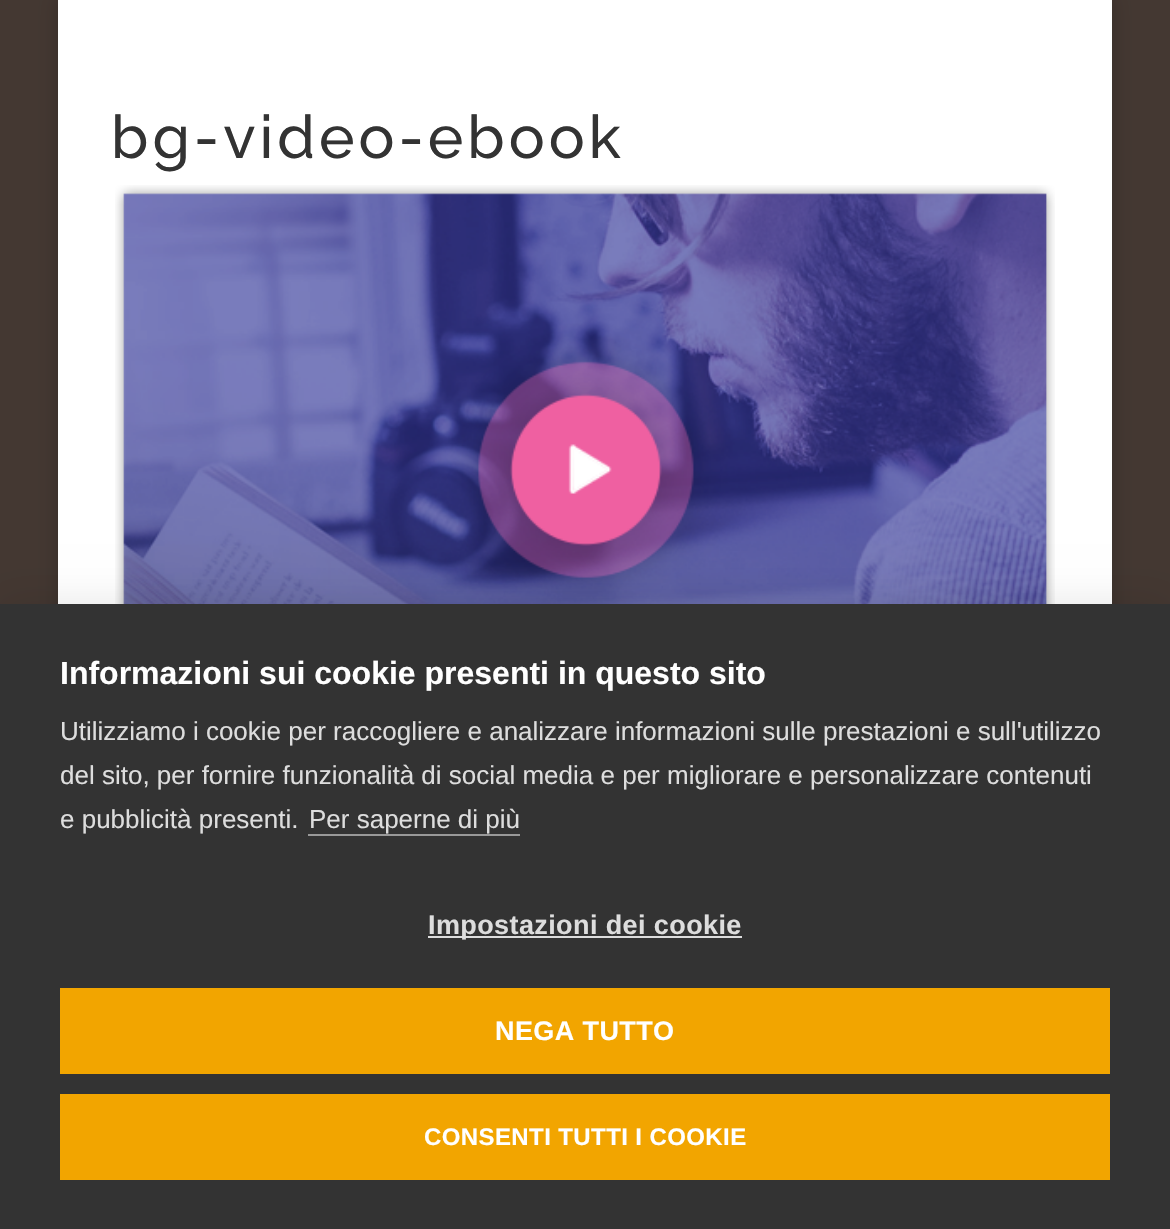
void draw(SkCanvas* canvas) {
	SkPaint fill;
	fill.setAntiAlias(true);
	auto makeFont = [&](const char* family, int weight, float size, bool italic = false) {
		SkFontStyle style(weight, SkFontStyle::kNormal_Width,
			italic ? SkFontStyle::kItalic_Slant : SkFontStyle::kUpright_Slant);
		SkFont result(fontMgr->matchFamilyStyle(family, style), size);
		result.setSubpixel(true);
		return result;
	};
	auto text = [&](const char* s, float x, float y, const SkFont& font) {
		canvas->drawString(s, x, y, font, fill);
	};
	auto spacedText = [&](const char* s, float x, float y, const SkFont& font, const SkPaint& ink, float letter, float word) {
		std::vector<SkGlyphID> glyphs(font.countText(s, strlen(s), SkTextEncoding::kUTF8));
		std::vector<float> xs(glyphs.size());
		font.textToGlyphs(s, strlen(s), SkTextEncoding::kUTF8, glyphs);
		font.getXPos(glyphs, xs, x);
		float extra = 0;
		for (size_t i = 0; i < glyphs.size(); i++) {
			xs[i] += extra;
			extra += letter + word * (glyphs[i] == font.unicharToGlyph(' '));
		}
		canvas->drawTextBlob(SkTextBlob::MakeFromPosHGlyphs(glyphs, xs, y, font), 0, 0, ink);
	};
	auto box = [&](float l, float t, float r, float b) {
		canvas->drawRect(SkRect::MakeLTRB(l, t, r, b), fill);
	};
	auto picture = [&](const char* path, float l, float t, float r, float b) {
		auto image = SkImages::DeferredFromEncodedData(SkData::MakeFromFileName(path));
		canvas->drawImageRect(image, SkRect::MakeLTRB(l, t, r, b), SkSamplingOptions());
	};
	canvas->clear(0xFF443832);
	fill.setColor(0x33000000);
	fill.setMaskFilter(SkMaskFilter::MakeBlur(kNormal_SkBlurStyle, 10));
	canvas->drawRect(SkRect::MakeLTRB(58, -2, 1112, 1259), fill);
	fill.setMaskFilter(nullptr);
	fill.setColor(0xFFFFFFFF);
	box(58, 0, 1112, 604);
	picture("image0.png", 115, 185, 1055, 604);
	fill.setColor(0x1A000000);
	fill.setMaskFilter(SkMaskFilter::MakeBlur(kNormal_SkBlurStyle, 20));
	canvas->drawRect(SkRect::MakeLTRB(0, 604, 1170, 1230), fill);
	fill.setMaskFilter(nullptr);
	fill.setColor(0xFF333333);
	box(0, 604, 1170, 1229);
	fill.setColor(0xFF999999);
	box(308, 834, 520, 836);
	fill.setColor(0xFFDDDDDD);
	box(428, 936, 742, 938);
	fill.setColor(0xFFF2A500);
	box(60, 988, 1110, 1074);
	box(60, 1094, 1110, 1180);
	auto font1 = makeFont("Raleway", 500, 60);
	fill.setColor(0xFF333333);
	spacedText("bg-video-ebook", 111, 158, font1, fill, 4, 0);
	auto font2 = makeFont("Liberation Sans", 700, 32);
	fill.setColor(0xFFFFFFFF);
	text("Informazioni sui cookie presenti in questo sito", 60, 684, font2);
	auto font3 = makeFont("Liberation Sans", 400, 26);
	fill.setColor(0xFFDDDDDD);
	text("Utilizziamo i cookie per raccogliere e analizzare informazioni sulle prestazioni e sull'utilizzo", 60, 740, font3);
	text("del sito, per fornire funzionalità di social media e per migliorare e personalizzare contenuti", 60, 784, font3);
	text("e pubblicità presenti.", 60, 828, font3);
	text("Per saperne di più", 309, 828, font3);
	auto font4 = makeFont("Liberation Sans", 700, 27);
	spacedText("Impostazioni dei cookie", 428, 934, font4, fill, 0.4f, 0);
	fill.setColor(0xFFFFFFFF);
	spacedText("NEGA TUTTO", 495, 1040, font4, fill, 0.4f, 0);
	auto font5 = makeFont("Liberation Sans", 700, 24);
	spacedText("CONSENTI TUTTI I COOKIE", 424, 1145, font5, fill, 0.4f, 0);
}
